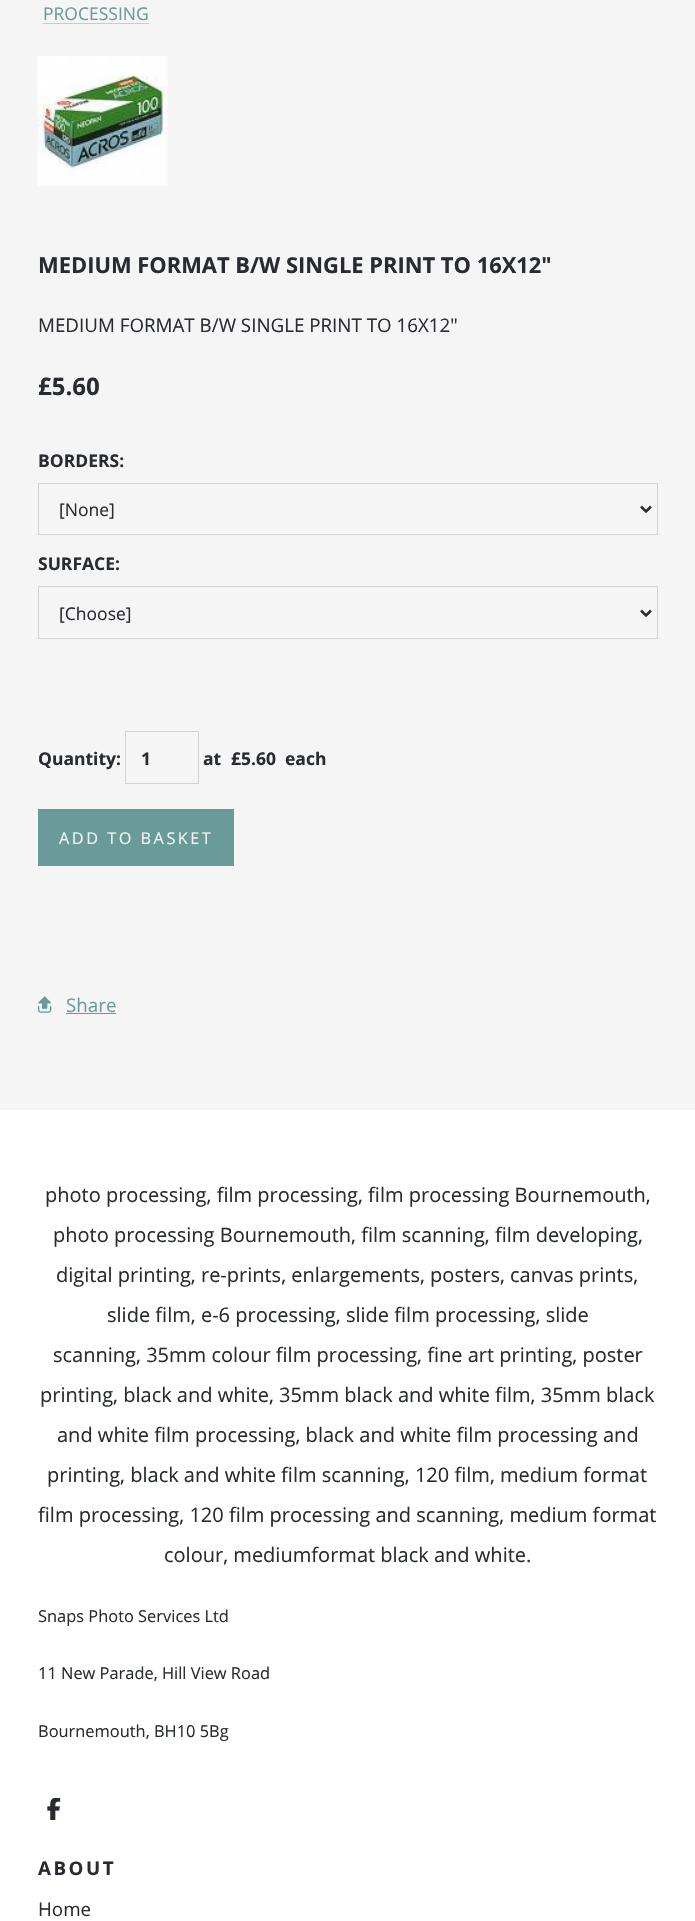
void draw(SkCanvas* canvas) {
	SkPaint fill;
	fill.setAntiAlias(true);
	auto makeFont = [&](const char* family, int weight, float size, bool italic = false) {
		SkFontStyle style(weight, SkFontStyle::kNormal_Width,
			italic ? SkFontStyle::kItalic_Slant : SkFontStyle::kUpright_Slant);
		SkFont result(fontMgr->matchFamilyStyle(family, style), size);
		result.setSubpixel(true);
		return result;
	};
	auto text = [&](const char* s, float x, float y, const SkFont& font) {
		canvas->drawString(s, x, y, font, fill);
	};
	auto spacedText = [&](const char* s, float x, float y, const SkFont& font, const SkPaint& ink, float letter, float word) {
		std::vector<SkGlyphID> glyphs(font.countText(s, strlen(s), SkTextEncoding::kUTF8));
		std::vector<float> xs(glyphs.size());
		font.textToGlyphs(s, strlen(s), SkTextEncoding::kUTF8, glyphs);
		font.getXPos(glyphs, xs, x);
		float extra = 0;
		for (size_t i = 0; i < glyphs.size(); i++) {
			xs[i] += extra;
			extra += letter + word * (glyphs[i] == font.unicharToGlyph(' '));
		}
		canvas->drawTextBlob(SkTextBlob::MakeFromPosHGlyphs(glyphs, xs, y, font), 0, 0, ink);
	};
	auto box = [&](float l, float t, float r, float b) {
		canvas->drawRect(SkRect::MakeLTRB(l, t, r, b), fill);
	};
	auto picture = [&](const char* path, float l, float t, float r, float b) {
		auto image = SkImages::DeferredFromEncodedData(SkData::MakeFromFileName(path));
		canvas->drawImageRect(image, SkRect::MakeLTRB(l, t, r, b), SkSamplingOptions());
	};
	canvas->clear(0xFFF5F5F5);
	fill.setColor(0xFFBDD1D0);
	box(43, 23, 149, 24);
	picture("image0.png", 37, 56, 168, 186);
	fill.setStyle(SkPaint::kStroke_Style);
	fill.setStrokeWidth(1);
	fill.setColor(0xFFD2D2D2);
	canvas->drawRect(SkRect::MakeLTRB(38.5f, 483.5f, 657.5f, 534.5f), fill);
	fill.setStrokeWidth(2.5f);
	fill.setColor(0xFF282B30);
	canvas->drawPath(SkPathBuilder().moveTo(641, 506.5f).lineTo(646, 511.5f).lineTo(651, 506.5f).detach(), fill);
	fill.setStrokeWidth(1);
	fill.setColor(0xFFD2D2D2);
	canvas->drawRect(SkRect::MakeLTRB(38.5f, 586.5f, 657.5f, 638.5f), fill);
	fill.setStrokeWidth(2.5f);
	fill.setColor(0xFF282B30);
	canvas->drawPath(SkPathBuilder().moveTo(641, 610.5f).lineTo(646, 615.5f).lineTo(651, 610.5f).detach(), fill);
	fill.setStrokeWidth(1);
	fill.setColor(0xFFD2D2D2);
	canvas->drawRect(SkRect::MakeLTRB(125.5f, 731.5f, 198.5f, 783.5f), fill);
	fill.setStyle(SkPaint::kFill_Style);
	fill.setColor(0xFF699B99);
	box(38, 809, 234, 866);
	picture("image1.png", 37, 996, 52, 1013);
	box(66, 1013, 116, 1014);
	fill.setColor(0xFFFFFFFF);
	box(0, 1110, 695, 1921);
	picture("image2.png", 47, 1798, 61, 1820);
	auto font1 = makeFont("Open Sans", 400, 17.5f);
	fill.setColor(0xFF699B99);
	text("PROCESSING", 43, 20, font1);
	auto font2 = makeFont("Open Sans", 700, 21.9f);
	fill.setColor(0xFF282B30);
	text("MEDIUM FORMAT B/W SINGLE PRINT TO 16X12\"", 38, 273, font2);
	auto font3 = makeFont("Open Sans", 400, 18.75f);
	text("MEDIUM FORMAT B/W SINGLE PRINT TO 16X12\"", 38, 332, font3);
	auto font4 = makeFont("Open Sans", 700, 24);
	text("£5.60", 38, 395, font4);
	auto font5 = makeFont("Open Sans", 700, 17.5f);
	text("BORDERS:", 38, 467, font5);
	text("[None]", 59, 516, font1);
	text("SURFACE:", 38, 570, font5);
	text("[Choose]", 59, 620, font1);
	text("Quantity:", 38, 765, font5);
	text("1", 141, 765, font5);
	text("at", 203, 765, font5);
	text("£5.60", 231, 765, font5);
	text("each", 285, 765, font5);
	auto font6 = makeFont("Open Sans", 400, 16.25f);
	fill.setColor(0xFFF5F5F5);
	spacedText("ADD TO BASKET", 59, 844, font6, fill, 2.5f, 0);
	fill.setColor(0xFF699B99);
	text("Share", 66, 1012, font3);
	auto font7 = makeFont("Open Sans", 400, 20);
	fill.setColor(0xFF282B30);
	text("photo processing, film processing, film processing Bournemouth,", 45, 1202, font7);
	text("photo processing Bournemouth, film scanning, film developing,", 53, 1242, font7);
	text("digital printing, re-prints, enlargements, posters, canvas prints,", 56, 1282, font7);
	text("slide film, e-6 processing, slide film processing, slide", 107, 1322, font7);
	text("scanning, 35mm colour film processing, fine art printing, poster", 53, 1362, font7);
	text("printing, black and white, 35mm black and white film, 35mm black", 40, 1402, font7);
	text("and white film processing, black and white film processing and", 57, 1442, font7);
	text("printing, black and white film scanning, 120 film, medium format", 47, 1482, font7);
	text("film processing, 120 film processing and scanning, medium format", 38, 1522, font7);
	text("colour, mediumformat black and white.", 164, 1562, font7);
	auto font8 = makeFont("Open Sans", 400, 16.4f);
	text("Snaps Photo Services Ltd", 38, 1622, font8);
	text("11 New Parade, Hill View Road", 38, 1679, font8);
	text("Bournemouth, BH10 5Bg", 38, 1737, font8);
	auto font9 = makeFont("Open Sans", 700, 18.75f);
	spacedText("ABOUT", 38, 1875, font9, fill, 2.5f, 0);
	text("Home", 38, 1916, font3);
}
